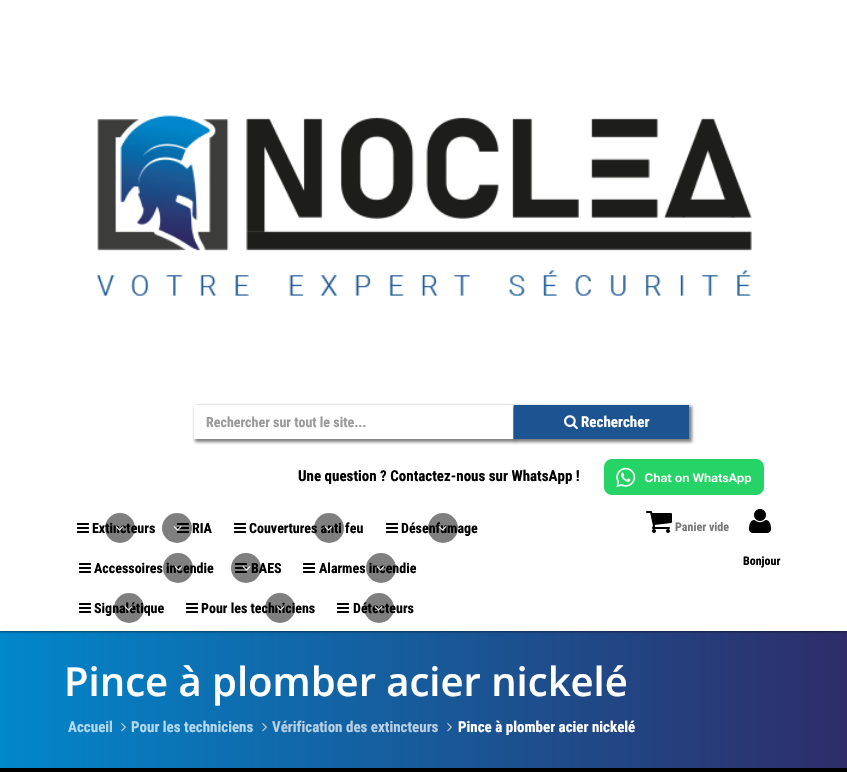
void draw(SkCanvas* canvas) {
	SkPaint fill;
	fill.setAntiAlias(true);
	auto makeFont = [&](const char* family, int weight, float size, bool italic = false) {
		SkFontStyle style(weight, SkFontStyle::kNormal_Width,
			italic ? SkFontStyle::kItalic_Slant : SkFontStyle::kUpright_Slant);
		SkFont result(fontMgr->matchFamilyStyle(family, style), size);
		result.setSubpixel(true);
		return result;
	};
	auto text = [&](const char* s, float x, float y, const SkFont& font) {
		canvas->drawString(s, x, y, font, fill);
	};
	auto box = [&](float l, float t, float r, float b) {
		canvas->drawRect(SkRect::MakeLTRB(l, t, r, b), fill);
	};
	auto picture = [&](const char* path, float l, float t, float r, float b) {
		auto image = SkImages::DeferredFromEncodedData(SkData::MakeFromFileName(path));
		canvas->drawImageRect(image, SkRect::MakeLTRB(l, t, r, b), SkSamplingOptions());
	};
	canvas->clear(0xFFFFFFFF);
	{
		const SkColor colors[] = {0xFF2E2D69, 0xFF0187CB};
		const float stops[] = {0, 1};
		const SkPoint ends[] = {{847, 700}, {0, 700}};
		fill.setShader(SkGradientShader::MakeLinear(ends, colors, stops, 2, SkTileMode::kClamp));
		fill.setAlpha(255);
	}
	box(0, 631, 847, 768);
	fill.setShader(nullptr);
	fill.setColor(0x80000000);
	fill.setMaskFilter(SkMaskFilter::MakeBlur(kNormal_SkBlurStyle, 1));
	canvas->drawRect(SkRect::MakeLTRB(0, 1, 847, 632), fill);
	fill.setMaskFilter(nullptr);
	fill.setColor(0xFFFFFFFF);
	box(0, 0, 847, 631);
	picture("image0.png", 97, 115, 752, 296);
	canvas->save();
	canvas->clipPath(SkPathBuilder(SkPathFillType::kEvenOdd).moveTo(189, 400).lineTo(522, 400).lineTo(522, 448).lineTo(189, 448).close().moveTo(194, 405).lineTo(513, 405).lineTo(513, 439).lineTo(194, 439).close().detach(), true);
	fill.setColor(0x80000000);
	fill.setMaskFilter(SkMaskFilter::MakeBlur(kNormal_SkBlurStyle, 1.5f));
	canvas->drawRect(SkRect::MakeLTRB(195, 406, 516, 442), fill);
	fill.setMaskFilter(nullptr);
	canvas->restore();
	fill.setMaskFilter(SkMaskFilter::MakeBlur(kNormal_SkBlurStyle, 1.5f));
	canvas->drawRect(SkRect::MakeLTRB(515, 406, 692, 442), fill);
	fill.setMaskFilter(nullptr);
	fill.setColor(0xFF1B5490);
	box(514, 405, 689, 439);
	picture("image1.png", 564, 415, 578, 430);
	picture("image2.png", 604, 459, 764, 495);
	picture("image4.png", 77, 523, 89, 533);
	picture("image4.png", 177, 523, 189, 533);
	fill.setColor(0x80000000);
	canvas->drawCircle(177, 528, 15, fill);
	picture("image5.png", 173, 526, 182, 531);
	picture("image4.png", 234, 523, 246, 533);
	picture("image4.png", 386, 523, 398, 533);
	picture("image4.png", 79, 563, 91, 573);
	picture("image4.png", 235, 563, 247, 573);
	picture("image4.png", 303, 563, 315, 573);
	picture("image4.png", 79, 603, 91, 613);
	picture("image4.png", 186, 603, 198, 613);
	picture("image4.png", 337, 603, 349, 613);
	picture("image14.png", 646, 511, 672, 533);
	picture("image15.png", 749, 509, 771, 533);
	fill.setColor(0xFF000000);
	box(0, 768, 847, 772);
	picture("image16.png", 121, 723, 126, 732);
	picture("image17.png", 262, 723, 267, 732);
	picture("image18.png", 447, 723, 452, 732);
	auto font1 = makeFont("Roboto Condensed", 700, 14);
	fill.setColor(0xFF999999);
	text("Rechercher sur tout le site...", 206, 427, font1);
	auto font2 = makeFont("Roboto Condensed", 700, 15);
	fill.setColor(0xFFFFFFFF);
	text("Rechercher", 581, 427, font2);
	fill.setColor(0xFF000000);
	text("Une question ? Contactez-nous sur WhatsApp !", 298, 481, font2);
	text("Extincteurs", 92, 533, font1);
	fill.setColor(0x80000000);
	canvas->drawCircle(120, 528, 15, fill);
	picture("image3.png", 115, 526, 124, 531);
	fill.setColor(0xFF000000);
	text("RIA", 192, 533, font1);
	text("Couvertures anti feu", 249, 533, font1);
	fill.setColor(0x80000000);
	canvas->drawCircle(329, 528, 15, fill);
	picture("image6.png", 324, 526, 333, 531);
	fill.setColor(0xFF000000);
	text("Désenfumage", 401, 533, font1);
	fill.setColor(0x80000000);
	canvas->drawCircle(443, 528, 15, fill);
	picture("image7.png", 438, 526, 447, 531);
	fill.setColor(0xFF000000);
	text("Accessoires incendie", 94, 573, font1);
	fill.setColor(0x80000000);
	canvas->drawCircle(178, 568, 15, fill);
	picture("image8.png", 174, 566, 183, 571);
	fill.setColor(0xFF000000);
	text("BAES", 251, 573, font1);
	fill.setColor(0x80000000);
	canvas->drawCircle(246, 568, 15, fill);
	picture("image9.png", 242, 566, 251, 571);
	fill.setColor(0xFF000000);
	text("Alarmes incendie", 319, 573, font1);
	fill.setColor(0x80000000);
	canvas->drawCircle(381, 568, 15, fill);
	picture("image10.png", 376, 566, 385, 571);
	fill.setColor(0xFF000000);
	text("Signalétique", 94, 613, font1);
	fill.setColor(0x80000000);
	canvas->drawCircle(129, 608, 15, fill);
	picture("image11.png", 124, 606, 133, 611);
	fill.setColor(0xFF000000);
	text("Pour les techniciens", 201, 613, font1);
	fill.setColor(0x80000000);
	canvas->drawCircle(280, 608, 15, fill);
	picture("image12.png", 276, 606, 285, 611);
	fill.setColor(0xFF000000);
	text("Détecteurs", 353, 613, font1);
	fill.setColor(0x80000000);
	canvas->drawCircle(379, 608, 15, fill);
	picture("image13.png", 374, 606, 383, 611);
	auto font3 = makeFont("Roboto Condensed", 700, 12);
	fill.setColor(0xFF777777);
	text("Panier vide", 675, 531, font3);
	fill.setColor(0xFF000000);
	text("Bonjour", 743, 565, font3);
	auto font4 = makeFont("Open Sans", 600, 40);
	fill.setColor(0xFFFFFFFF);
	text("Pince à plomber acier nickelé", 64, 696, font4);
	fill.setColor(0xFFB4D8EC);
	text("Accueil", 68, 732, font2);
	text("Pour les techniciens", 131, 732, font2);
	fill.setColor(0xFFB8D0E3);
	text("Vérification des extincteurs", 272, 732, font2);
	fill.setColor(0xFFFFFFFF);
	text("Pince à plomber acier nickelé", 458, 732, font2);
}
